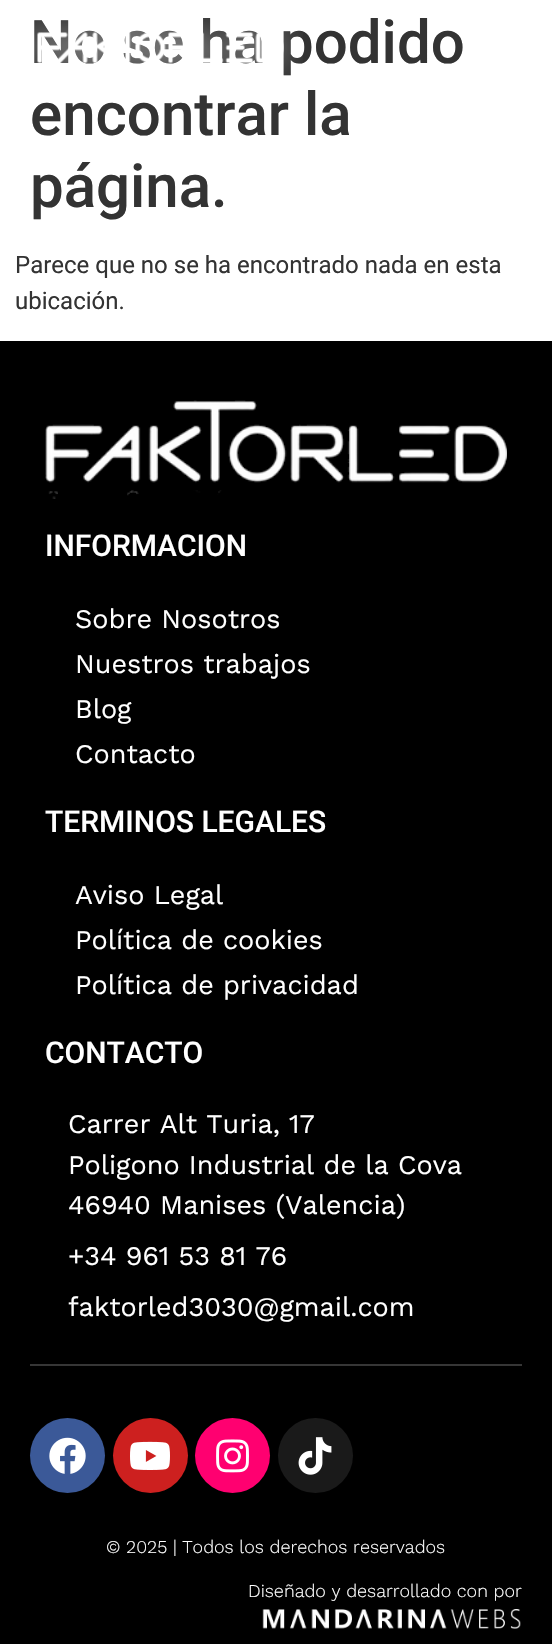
void draw(SkCanvas* canvas) {
	SkPaint fill;
	fill.setAntiAlias(true);
	auto makeFont = [&](const char* family, int weight, float size, bool italic = false) {
		SkFontStyle style(weight, SkFontStyle::kNormal_Width,
			italic ? SkFontStyle::kItalic_Slant : SkFontStyle::kUpright_Slant);
		SkFont result(fontMgr->matchFamilyStyle(family, style), size);
		result.setSubpixel(true);
		return result;
	};
	auto text = [&](const char* s, float x, float y, const SkFont& font) {
		canvas->drawString(s, x, y, font, fill);
	};
	auto box = [&](float l, float t, float r, float b) {
		canvas->drawRect(SkRect::MakeLTRB(l, t, r, b), fill);
	};
	auto picture = [&](const char* path, float l, float t, float r, float b) {
		auto image = SkImages::DeferredFromEncodedData(SkData::MakeFromFileName(path));
		canvas->drawImageRect(image, SkRect::MakeLTRB(l, t, r, b), SkSamplingOptions());
	};
	canvas->clear(0xFFFFFFFF);
	fill.setColor(0xFF000000);
	box(0, 341, 552, 1644);
	picture("image1.png", 45, 400, 507, 499);
	fill.setColor(0xFF363636);
	box(30, 1364, 522, 1366);
	fill.setColor(0xFF3B5998);
	canvas->drawCircle(67.5f, 1455.5f, 37.5f, fill);
	picture("image2.png", 49, 1437, 86, 1474);
	fill.setColor(0xFFCD201F);
	canvas->drawCircle(150.5f, 1455.5f, 37.5f, fill);
	picture("image3.png", 130, 1441, 170, 1470);
	fill.setColor(0xFFFF0070);
	canvas->drawCircle(232.5f, 1455.5f, 37.5f, fill);
	picture("image4.png", 216, 1439, 249, 1473);
	fill.setColor(0xFF1A1A1A);
	canvas->drawCircle(315.5f, 1455.5f, 37.5f, fill);
	picture("image5.png", 298, 1437, 332, 1475);
	picture("image6.png", 262, 1609, 521, 1629);
	auto font1 = makeFont("Roboto", 500, 60);
	fill.setColor(0xFF333333);
	text("No se ha podido", 30, 63, font1);
	text("encontrar la", 30, 135, font1);
	text("página.", 30, 207, font1);
	auto font2 = makeFont("Roboto", 400, 24);
	text("Parece que no se ha encontrado nada en esta", 15, 273, font2);
	text("ubicación.", 15, 309, font2);
	picture("image0.png", 34, 18, 303, 75);
	auto font3 = makeFont("Roboto", 500, 30);
	fill.setColor(0xFFFFFFFF);
	text("INFORMACION", 45, 556, font3);
	auto font4 = makeFont("Work Sans", 400, 27);
	text("Sobre Nosotros", 75, 628, font4);
	text("Nuestros trabajos", 75, 673, font4);
	text("Blog", 75, 718, font4);
	text("Contacto", 75, 763, font4);
	text("TERMINOS LEGALES", 45, 832, font3);
	text("Aviso Legal", 75, 904, font4);
	text("Política de cookies", 75, 949, font4);
	text("Política de privacidad", 75, 994, font4);
	text("CONTACTO", 45, 1063, font3);
	text("Carrer Alt Turia, 17", 68, 1133, font4);
	text("Poligono Industrial de la Cova", 68, 1174, font4);
	text("46940 Manises (Valencia)", 68, 1214, font4);
	text("+34 961 53 81 76", 68, 1265, font4);
	text("faktorled3030@gmail.com", 68, 1316, font4);
	auto font5 = makeFont("Work Sans", 300, 18);
	text("© 2025 | Todos los derechos reservados", 106, 1553, font5);
	text("Diseñado y desarrollado con por", 248, 1597, font5);
}
